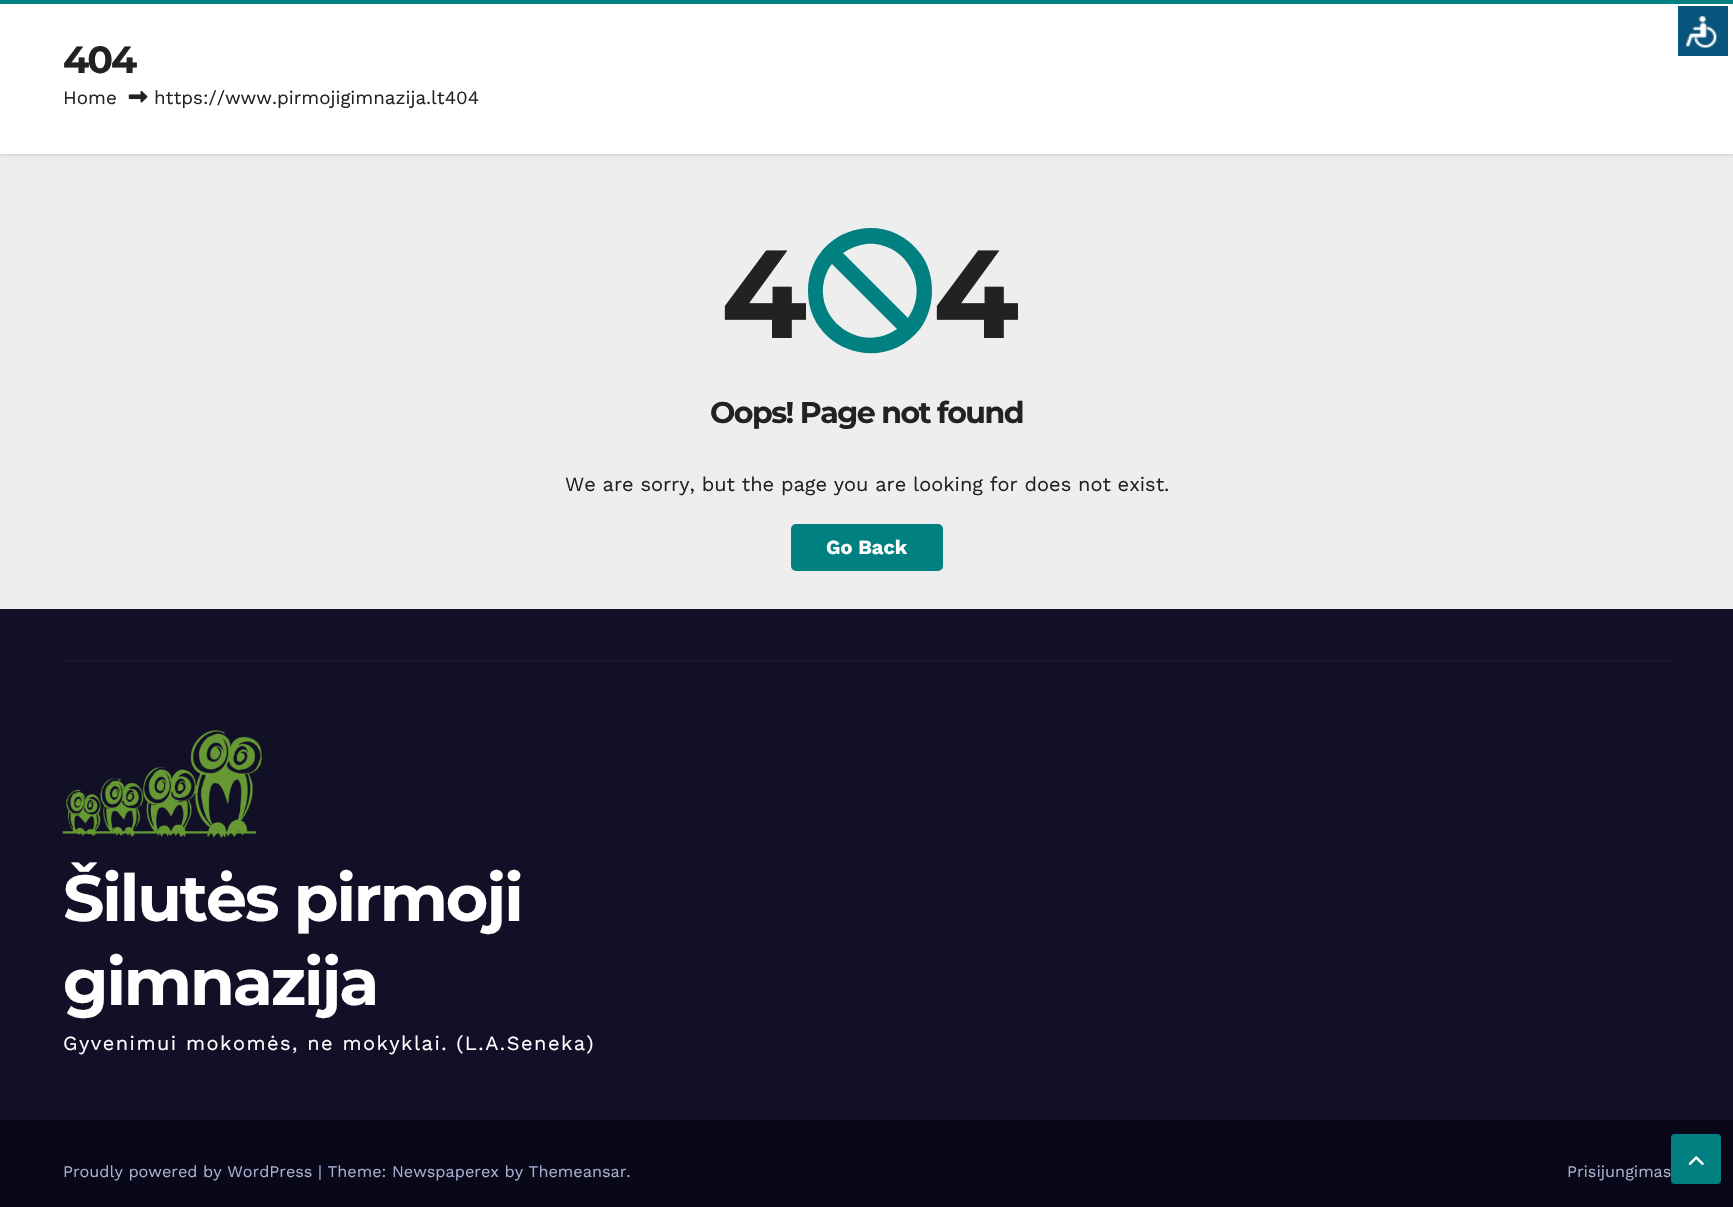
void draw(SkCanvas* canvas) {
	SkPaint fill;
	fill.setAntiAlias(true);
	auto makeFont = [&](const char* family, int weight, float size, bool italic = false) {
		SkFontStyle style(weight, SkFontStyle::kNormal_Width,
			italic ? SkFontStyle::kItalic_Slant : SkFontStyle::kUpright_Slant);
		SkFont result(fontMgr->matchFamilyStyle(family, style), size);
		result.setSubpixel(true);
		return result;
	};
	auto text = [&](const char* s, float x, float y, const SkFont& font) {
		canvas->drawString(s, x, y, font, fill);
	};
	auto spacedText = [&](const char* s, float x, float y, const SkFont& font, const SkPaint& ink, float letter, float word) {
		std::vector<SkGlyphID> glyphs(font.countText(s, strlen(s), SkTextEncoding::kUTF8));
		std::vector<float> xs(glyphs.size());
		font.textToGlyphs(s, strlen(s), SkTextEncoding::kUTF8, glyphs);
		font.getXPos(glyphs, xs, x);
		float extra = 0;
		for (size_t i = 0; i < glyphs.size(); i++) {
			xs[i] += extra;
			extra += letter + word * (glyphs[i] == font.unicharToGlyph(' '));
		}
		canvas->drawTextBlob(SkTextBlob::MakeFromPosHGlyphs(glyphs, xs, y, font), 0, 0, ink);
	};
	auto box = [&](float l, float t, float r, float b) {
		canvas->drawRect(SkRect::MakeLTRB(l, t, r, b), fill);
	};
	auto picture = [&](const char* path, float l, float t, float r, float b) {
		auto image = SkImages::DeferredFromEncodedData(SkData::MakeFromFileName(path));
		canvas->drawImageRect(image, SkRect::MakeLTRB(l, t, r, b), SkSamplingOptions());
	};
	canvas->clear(0xFFEEEEEE);
	fill.setColor(0x26000000);
	fill.setMaskFilter(SkMaskFilter::MakeBlur(kNormal_SkBlurStyle, 2));
	canvas->drawRect(SkRect::MakeLTRB(0, 5, 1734, 155), fill);
	fill.setMaskFilter(nullptr);
	fill.setColor(0xFFFFFFFF);
	box(0, 4, 1733, 154);
	fill.setColor(0xFF09547C);
	box(1678, 6, 1728, 56);
	picture("image0.png", 1686, 16, 1717, 48);
	fill.setColor(0xFF008080);
	box(0, 0, 1733, 4);
	picture("image1.png", 128, 90, 148, 103);
	canvas->drawPath(SkPathBuilder().moveTo(897, 329).lineTo(832, 264).cubicTo(827, 270, 824, 278, 823, 287).cubicTo(820, 326, 865, 352, 897, 329).close().moveTo(908, 318).cubicTo(931, 286, 906, 241, 866, 244).cubicTo(858, 245, 850, 248, 843, 253).close().moveTo(808, 291).cubicTo(808, 231, 883, 205, 920, 253).cubicTo(928, 263, 932, 277, 932, 291).cubicTo(932, 304, 928, 318, 920, 329).cubicTo(883, 376, 808, 350, 808, 291).close().detach(), fill);
	canvas->drawRoundRect(SkRect::MakeLTRB(792.5f, 525.5f, 941.5f, 569.5f), 3.5f, 3.5f, fill);
	fill.setStyle(SkPaint::kStroke_Style);
	fill.setStrokeWidth(3);
	canvas->drawRoundRect(SkRect::MakeLTRB(792.5f, 525.5f, 941.5f, 569.5f), 3.5f, 3.5f, fill);
	fill.setStyle(SkPaint::kFill_Style);
	fill.setColor(0xFF121026);
	box(0, 609, 1733, 1120);
	fill.setColor(0xFF1A182E);
	box(63, 659, 1671, 662);
	picture("image2.png", 62, 730, 262, 838);
	fill.setColor(0xFF090818);
	box(0, 1120, 1733, 1207);
	fill.setColor(0xFF008080);
	canvas->drawRoundRect(SkRect::MakeLTRB(1672.5f, 1135.5f, 1719.5f, 1182.5f), 2.5f, 2.5f, fill);
	fill.setStyle(SkPaint::kStroke_Style);
	canvas->drawRoundRect(SkRect::MakeLTRB(1672.5f, 1135.5f, 1719.5f, 1182.5f), 2.5f, 2.5f, fill);
	picture("image3.png", 1688, 1156, 1704, 1165);
	auto font1 = makeFont("Montserrat", 700, 38);
	fill.setStyle(SkPaint::kFill_Style);
	fill.setColor(0xFF222222);
	spacedText("404", 63, 73, font1, fill, -2, 0);
	auto font2 = makeFont("Work Sans", 400, 18.75f);
	text("Home", 63, 104, font2);
	text("https://www.pirmojigimnazija.lt404", 154, 104, font2);
	auto font3 = makeFont("Montserrat", 700, 125);
	spacedText("4", 721, 338, font3, fill, -6, 0);
	spacedText("4", 933, 338, font3, fill, -6, 0);
	auto font4 = makeFont("Montserrat", 700, 30);
	spacedText("Oops! Page not found", 710, 423, font4, fill, -1.5f, 0);
	auto font5 = makeFont("Work Sans", 400, 20);
	text("We are sorry, but the page you are looking for does not exist.", 565, 491, font5);
	auto font6 = makeFont("Work Sans", 700, 20);
	fill.setColor(0xFFFFFFFF);
	text("Go Back", 826, 554, font6);
	auto font7 = makeFont("Montserrat", 700, 65);
	spacedText("Šilutės pirmoji", 63, 921, font7, fill, -2.1f, 0);
	spacedText("gimnazija", 63, 1005, font7, fill, -2.1f, 0);
	spacedText("Gyvenimui mokomės, ne mokyklai. (L.A.Seneka)", 63, 1050, font5, fill, 1.5f, 0);
	auto font8 = makeFont("Work Sans", 400, 16.25f);
	fill.setColor(0xFFAAAED1);
	text("Proudly powered by WordPress | Theme: Newspaperex by Themeansar.", 63, 1177, font8);
	text("Prisijungimas", 1567, 1177, font8);
}
